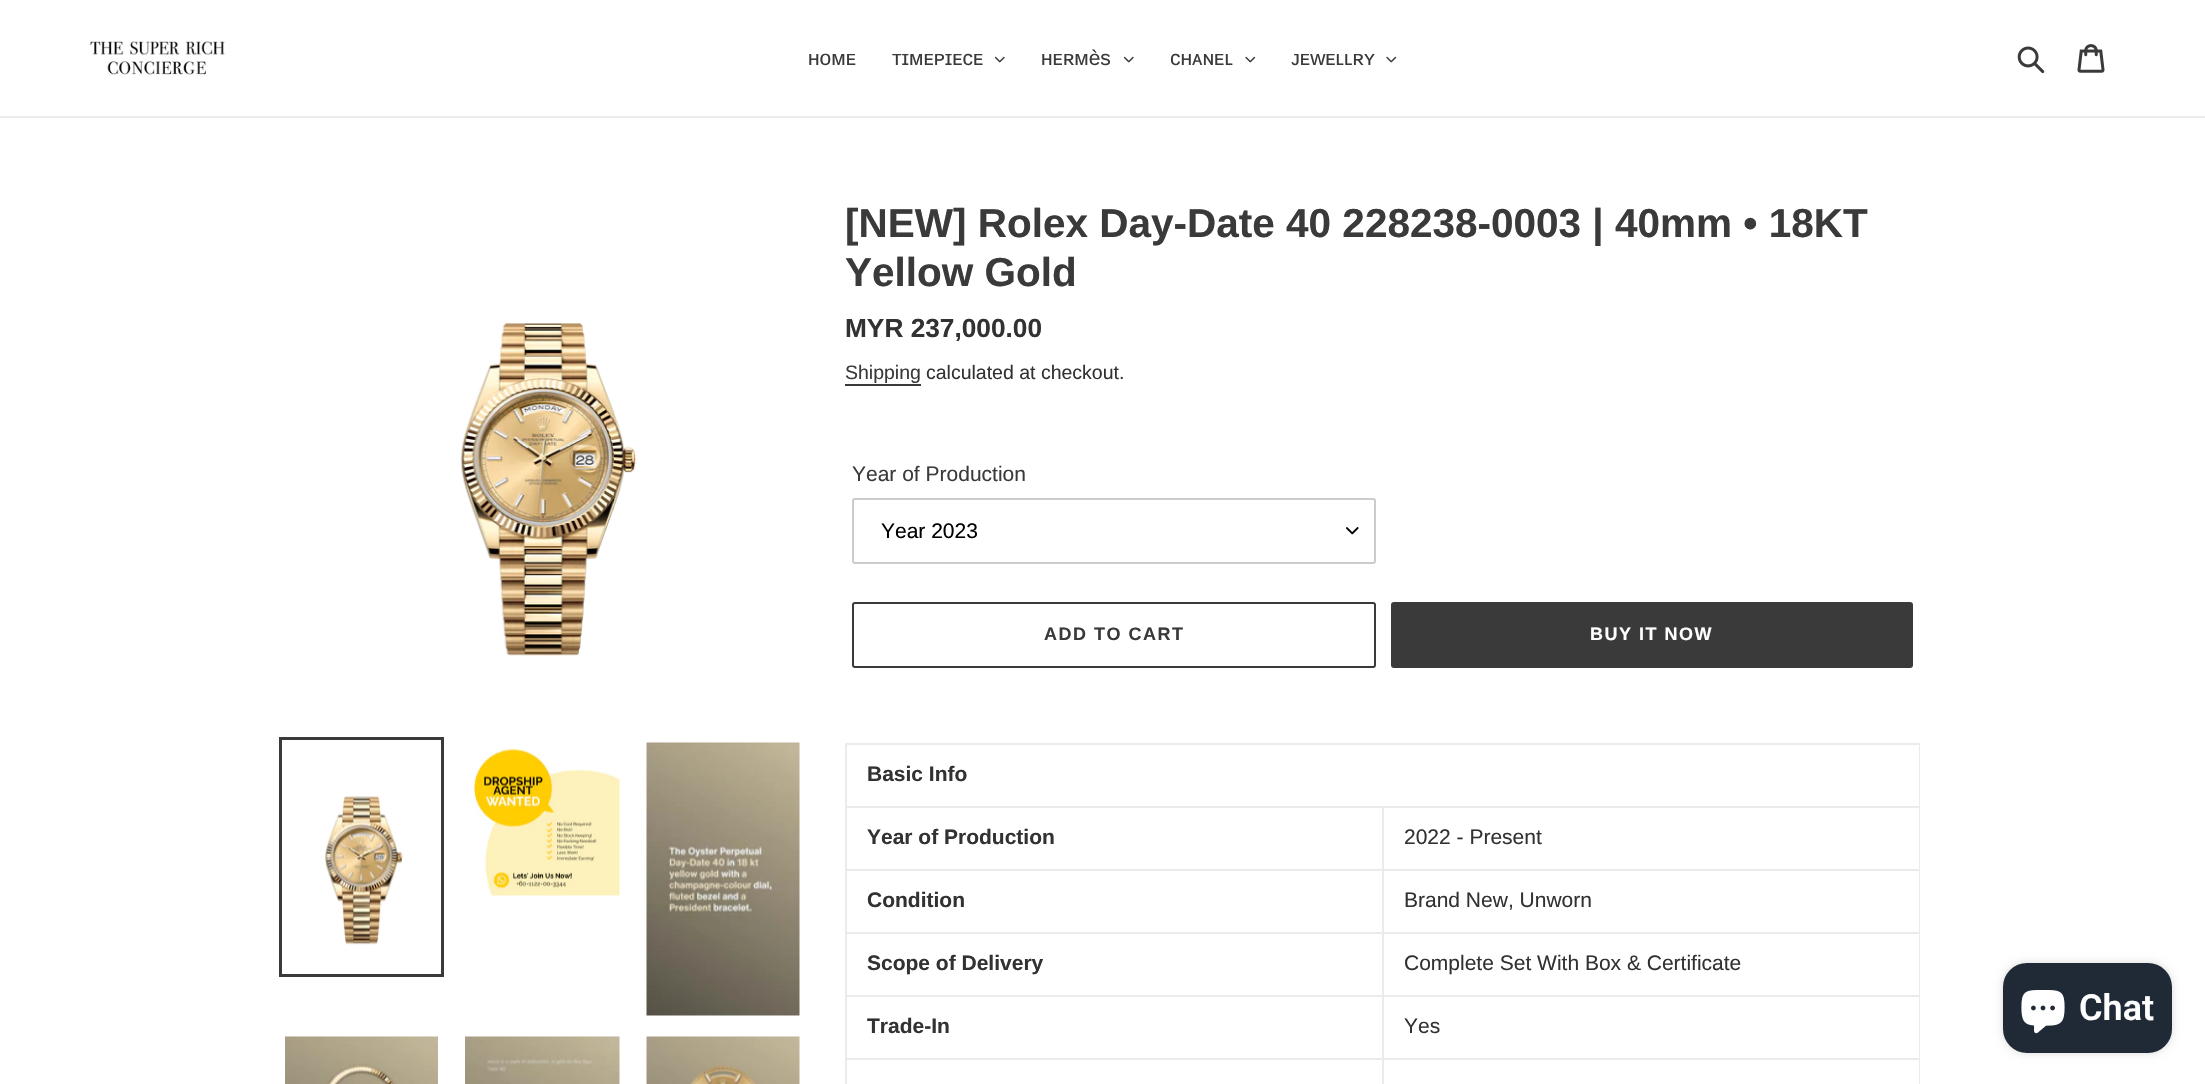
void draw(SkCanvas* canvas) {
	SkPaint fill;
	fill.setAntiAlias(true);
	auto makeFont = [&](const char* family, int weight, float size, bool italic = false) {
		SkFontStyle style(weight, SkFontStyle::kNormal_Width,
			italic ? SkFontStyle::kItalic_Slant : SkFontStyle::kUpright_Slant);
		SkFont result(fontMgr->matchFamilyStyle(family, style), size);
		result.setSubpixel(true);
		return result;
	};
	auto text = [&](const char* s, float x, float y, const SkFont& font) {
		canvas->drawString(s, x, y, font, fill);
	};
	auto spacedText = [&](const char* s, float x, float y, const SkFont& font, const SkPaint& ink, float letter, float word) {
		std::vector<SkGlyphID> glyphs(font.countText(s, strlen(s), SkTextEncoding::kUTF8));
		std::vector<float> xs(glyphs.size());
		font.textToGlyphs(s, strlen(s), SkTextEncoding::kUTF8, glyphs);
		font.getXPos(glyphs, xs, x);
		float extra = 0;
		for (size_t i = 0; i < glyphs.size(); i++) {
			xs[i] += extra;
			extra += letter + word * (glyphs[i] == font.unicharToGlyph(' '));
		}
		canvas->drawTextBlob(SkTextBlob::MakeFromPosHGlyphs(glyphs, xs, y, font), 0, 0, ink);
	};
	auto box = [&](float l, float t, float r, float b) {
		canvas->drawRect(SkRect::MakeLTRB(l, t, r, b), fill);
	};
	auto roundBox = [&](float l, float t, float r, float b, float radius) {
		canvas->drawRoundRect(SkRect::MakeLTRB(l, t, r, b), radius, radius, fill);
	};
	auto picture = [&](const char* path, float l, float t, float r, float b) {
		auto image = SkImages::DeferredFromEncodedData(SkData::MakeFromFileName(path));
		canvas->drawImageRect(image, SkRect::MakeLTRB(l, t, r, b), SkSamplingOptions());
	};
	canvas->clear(0xFFFFFFFF);
	fill.setColor(0xFFEBEBEB);
	box(0, 116, 2205, 118);
	picture("image0.png", 90, 41, 225, 75);
	picture("image1.png", 995, 56, 1005, 63);
	picture("image1.png", 1124, 56, 1134, 63);
	picture("image2.png", 1245, 56, 1256, 63);
	picture("image2.png", 1386, 56, 1397, 63);
	picture("image3.png", 2017, 46, 2045, 74);
	picture("image4.png", 2077, 44, 2105, 73);
	picture("image5.png", 460, 323, 636, 656);
	fill.setStyle(SkPaint::kStroke_Style);
	fill.setStrokeWidth(3);
	fill.setColor(0xFF3A3A3A);
	canvas->drawRect(SkRect::MakeLTRB(280.5f, 738.5f, 442.5f, 975.5f), fill);
	picture("image6.png", 325, 796, 403, 945);
	picture("image7.png", 471, 748, 620, 896);
	picture("image8.png", 646, 742, 800, 1016);
	picture("image9.png", 285, 1036, 438, 1084);
	picture("image10.png", 465, 1036, 620, 1084);
	picture("image11.png", 646, 1036, 800, 1084);
	fill.setStyle(SkPaint::kFill_Style);
	box(845, 384, 921, 386);
	picture("image12.png", 1346, 527, 1359, 535);
	fill.setStyle(SkPaint::kStroke_Style);
	fill.setStrokeWidth(2);
	fill.setColor(0xFFCCCCCC);
	canvas->drawRoundRect(SkRect::MakeLTRB(853, 499, 1375, 563), 2, 2, fill);
	fill.setColor(0xFF3A3A3A);
	canvas->drawRoundRect(SkRect::MakeLTRB(853, 603, 1375, 667), 2, 2, fill);
	fill.setStyle(SkPaint::kFill_Style);
	roundBox(1391, 602, 1913, 668, 3);
	fill.setColor(0xFFEBEBEB);
	box(845, 743, 1920, 745);
	box(1382, 806, 1920, 808);
	box(1382, 869, 1920, 871);
	box(1382, 932, 1920, 934);
	box(1382, 995, 1920, 997);
	box(1382, 1058, 1920, 1060);
	box(1919, 1058, 1920, 1084);
	box(1919, 995, 1920, 1059);
	box(1919, 932, 1920, 996);
	box(1919, 869, 1920, 933);
	box(1919, 806, 1920, 870);
	box(1919, 743, 1920, 807);
	box(1382, 1058, 1384, 1084);
	box(845, 1058, 1383, 1060);
	box(1382, 995, 1384, 1059);
	box(845, 995, 1383, 997);
	box(1382, 932, 1384, 996);
	box(845, 932, 1383, 934);
	box(1382, 869, 1384, 933);
	box(845, 869, 1383, 871);
	box(1382, 806, 1384, 870);
	box(845, 806, 1383, 808);
	box(845, 1058, 847, 1084);
	box(845, 995, 847, 1059);
	box(845, 932, 847, 996);
	box(845, 869, 847, 933);
	box(845, 806, 847, 870);
	box(845, 743, 847, 807);
	fill.setColor(0x26000000);
	fill.setMaskFilter(SkMaskFilter::MakeBlur(kNormal_SkBlurStyle, 4));
	canvas->drawRoundRect(SkRect::MakeLTRB(2003, 963, 2172, 1053), 24, 24, fill);
	fill.setMaskFilter(nullptr);
	fill.setColor(0xFF202A36);
	roundBox(2003, 963, 2172, 1053, 24);
	picture("image13.png", 2021, 990, 2065, 1034);
	auto font1 = makeFont("Liberation Sans", 400, 21);
	fill.setColor(0xFF3A3A3A);
	text("ʜᴏᴍᴇ", 808, 65, font1);
	text("ᴛɪᴍᴇᴘɪᴇᴄᴇ", 892, 65, font1);
	text("ʜᴇʀᴍès", 1041, 65, font1);
	text("ᴄʜᴀɴᴇʟ", 1170, 65, font1);
	text("ᴊᴇᴡᴇʟʟʀʏ", 1291, 65, font1);
	auto font2 = makeFont("Liberation Sans", 700, 40.5f);
	text("[NEW] Rolex Day-Date 40 228238-0003 | 40mm • 18KT", 845, 237, font2);
	text("Yellow Gold", 845, 286, font2);
	auto font3 = makeFont("Liberation Sans", 700, 26.25f);
	fill.setColor(0xFF333232);
	text("MYR 237,000.00", 845, 337, font3);
	auto font4 = makeFont("Liberation Sans", 400, 19.5f);
	fill.setColor(0xFF3A3A3A);
	text("Shipping", 845, 379, font4);
	fill.setColor(0xFF333232);
	text("calculated at checkout.", 926, 379, font4);
	fill.setColor(0xFF3A3A3A);
	text("Year of Production", 852, 481, font1);
	fill.setColor(0xFF000000);
	text("Year 2023", 881, 538, font1);
	auto font5 = makeFont("Liberation Sans", 700, 18);
	fill.setColor(0xFF3A3A3A);
	spacedText("ADD TO CART", 1044, 640, font5, fill, 1.5f, 0);
	fill.setColor(0xFFFFFFFF);
	spacedText("BUY IT NOW", 1590, 640, font5, fill, 1.5f, 0);
	auto font6 = makeFont("Liberation Sans", 700, 21);
	fill.setColor(0xFF333232);
	text("Basic Info", 867, 781, font6);
	text("Year of Production", 867, 844, font6);
	text("2022 - Present", 1404, 844, font1);
	text("Condition", 867, 907, font6);
	text("Brand New, Unworn", 1404, 907, font1);
	text("Scope of Delivery", 867, 970, font6);
	text("Complete Set With Box & Certificate", 1404, 970, font1);
	text("Trade-In", 867, 1033, font6);
	text("Yes", 1404, 1033, font1);
	auto font7 = makeFont("Roboto", 600, 36);
	fill.setColor(0xFFFFFFFF);
	text("Chat", 2079, 1020, font7);
}
